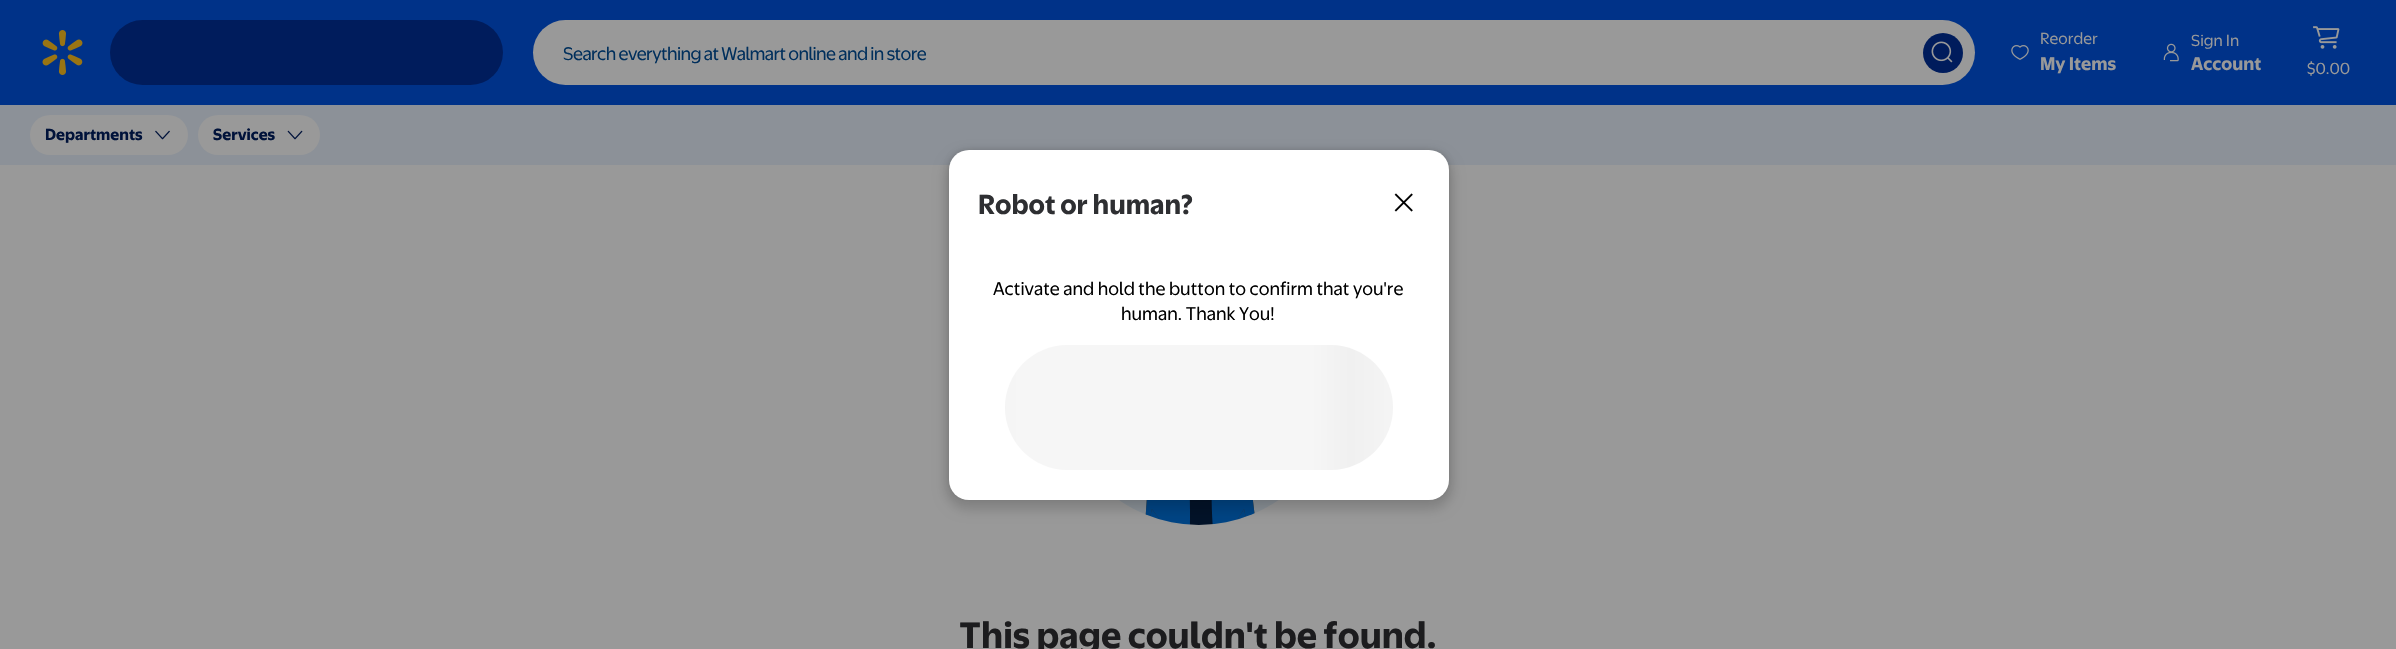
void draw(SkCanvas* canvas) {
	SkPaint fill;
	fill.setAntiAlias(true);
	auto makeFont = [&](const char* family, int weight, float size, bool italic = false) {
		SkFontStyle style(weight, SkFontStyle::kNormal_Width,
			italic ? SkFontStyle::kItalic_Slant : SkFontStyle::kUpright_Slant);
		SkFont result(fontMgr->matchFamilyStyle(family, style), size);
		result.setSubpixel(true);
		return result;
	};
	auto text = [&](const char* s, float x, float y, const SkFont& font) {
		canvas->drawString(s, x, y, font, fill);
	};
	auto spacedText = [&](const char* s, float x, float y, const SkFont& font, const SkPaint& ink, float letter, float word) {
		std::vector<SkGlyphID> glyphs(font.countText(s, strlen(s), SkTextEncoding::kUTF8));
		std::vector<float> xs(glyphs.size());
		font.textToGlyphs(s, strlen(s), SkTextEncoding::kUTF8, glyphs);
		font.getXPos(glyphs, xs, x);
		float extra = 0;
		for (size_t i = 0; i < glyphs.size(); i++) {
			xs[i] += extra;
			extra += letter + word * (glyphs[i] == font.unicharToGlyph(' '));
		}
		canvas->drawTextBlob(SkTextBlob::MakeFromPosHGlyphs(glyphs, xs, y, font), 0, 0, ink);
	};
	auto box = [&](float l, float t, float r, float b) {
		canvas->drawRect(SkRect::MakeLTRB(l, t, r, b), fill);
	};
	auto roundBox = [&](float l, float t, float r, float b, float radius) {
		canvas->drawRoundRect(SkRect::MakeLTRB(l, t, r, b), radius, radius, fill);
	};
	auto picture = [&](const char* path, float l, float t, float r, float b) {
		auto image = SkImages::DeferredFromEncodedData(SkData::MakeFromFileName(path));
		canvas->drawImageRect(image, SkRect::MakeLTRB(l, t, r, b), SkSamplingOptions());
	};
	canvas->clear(0xFF999999);
	fill.setColor(0xFF003288);
	box(0, 0, 2396, 105);
	picture("image0.png", 42, 30, 83, 75);
	fill.setColor(0xFF001C5C);
	roundBox(110, 20, 503, 85, 32.5f);
	fill.setColor(0xFF999999);
	roundBox(533, 20, 1975, 85, 32.5f);
	fill.setColor(0xFF001C5C);
	canvas->drawCircle(1943, 53, 20, fill);
	picture("image1.png", 1931, 41, 1953, 63);
	picture("image2.png", 2011, 45, 2029, 60);
	picture("image3.png", 2163, 43, 2179, 62);
	picture("image4.png", 2313, 26, 2340, 49);
	fill.setColor(0xFF8C9198);
	box(0, 105, 2396, 165);
	fill.setColor(0xFF999999);
	roundBox(30, 115, 188, 155, 20);
	picture("image5.png", 155, 130, 170, 140);
	roundBox(198, 115, 320, 155, 20);
	picture("image6.png", 287, 130, 303, 140);
	picture("image7.png", 1119, 500, 1279, 525);
	fill.setColor(0x1A000000);
	fill.setMaskFilter(SkMaskFilter::MakeBlur(kNormal_SkBlurStyle, 2.5f));
	canvas->drawRoundRect(SkRect::MakeLTRB(949, 149, 1449, 499), 20, 20, fill);
	fill.setMaskFilter(nullptr);
	fill.setColor(0x26000000);
	fill.setMaskFilter(SkMaskFilter::MakeBlur(kNormal_SkBlurStyle, 6));
	canvas->drawRoundRect(SkRect::MakeLTRB(945, 153, 1453, 510), 24, 24, fill);
	fill.setMaskFilter(nullptr);
	fill.setColor(0xFFFFFFFF);
	roundBox(949, 150, 1449, 500, 20);
	picture("image8.png", 1394, 193, 1413, 212);
	{
		const SkColor colors[] = {0xFFF6F6F6, 0xFFF0F0F0, 0xFFF6F6F6};
		const float stops[] = {0.08f, 0.18f, 0.33f};
		const SkPoint ends[] = {{893, 408}, {1280, 408}};
		fill.setShader(SkGradientShader::MakeLinear(ends, colors, stops, 3, SkTileMode::kClamp));
		fill.setAlpha(255);
	}
	canvas->drawPath(SkPathBuilder().moveTo(1067.5f, 345).lineTo(1280, 345).lineTo(1280, 470).lineTo(1067.5f, 470).cubicTo(1033, 470, 1005, 442, 1005, 407.5f).cubicTo(1005, 373, 1033, 345, 1067.5f, 345).close().detach(), fill);
	{
		const SkColor colors[] = {0xFFF6F6F6, 0xFFF0F0F0, 0xFFF6F6F6};
		const float stops[] = {0.08f, 0.18f, 0.33f};
		const SkPoint ends[] = {{1280, 408}, {1668, 408}};
		fill.setShader(SkGradientShader::MakeLinear(ends, colors, stops, 3, SkTileMode::kClamp));
		fill.setAlpha(255);
	}
	canvas->drawPath(SkPathBuilder().moveTo(1280, 345).lineTo(1330.5f, 345).cubicTo(1365, 345, 1393, 373, 1393, 407.5f).cubicTo(1393, 442, 1365, 470, 1330.5f, 470).lineTo(1280, 470).close().detach(), fill);
	auto font1 = makeFont("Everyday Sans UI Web", 400, 20);
	fill.setShader(nullptr);
	fill.setColor(0xFF002F5C);
	spacedText("Search everything at Walmart online and in store", 563, 60, font1, fill, -0.6f, 0);
	auto font2 = makeFont("Everyday Sans UI Web", 400, 17.5f);
	fill.setColor(0xFF999999);
	text("Reorder", 2040, 44, font2);
	auto font3 = makeFont("Everyday Sans UI Web", 700, 20);
	text("My Items", 2040, 70, font3);
	text("Sign In", 2191, 46, font2);
	text("Account", 2191, 70, font3);
	text("$0.00", 2307, 74, font2);
	auto font4 = makeFont("Everyday Sans UI Web", 700, 17.5f);
	fill.setColor(0xFF00123A);
	text("Departments", 45, 140, font4);
	text("Services", 213, 140, font4);
	auto font5 = makeFont("Everyday Sans UI Web", 700, 40);
	fill.setColor(0xFF1C1C1E);
	text("This page couldn't be found.", 959, 648, font5);
	auto font6 = makeFont("Everyday Sans UI Web", 700, 30);
	fill.setColor(0xFF2E2F32);
	text("Robot or human?", 978, 214, font6);
	fill.setColor(0xFF000000);
	text("Activate and hold the button to confirm that you're", 993, 295, font1);
	text("human. Thank You!", 1121, 320, font1);
}
